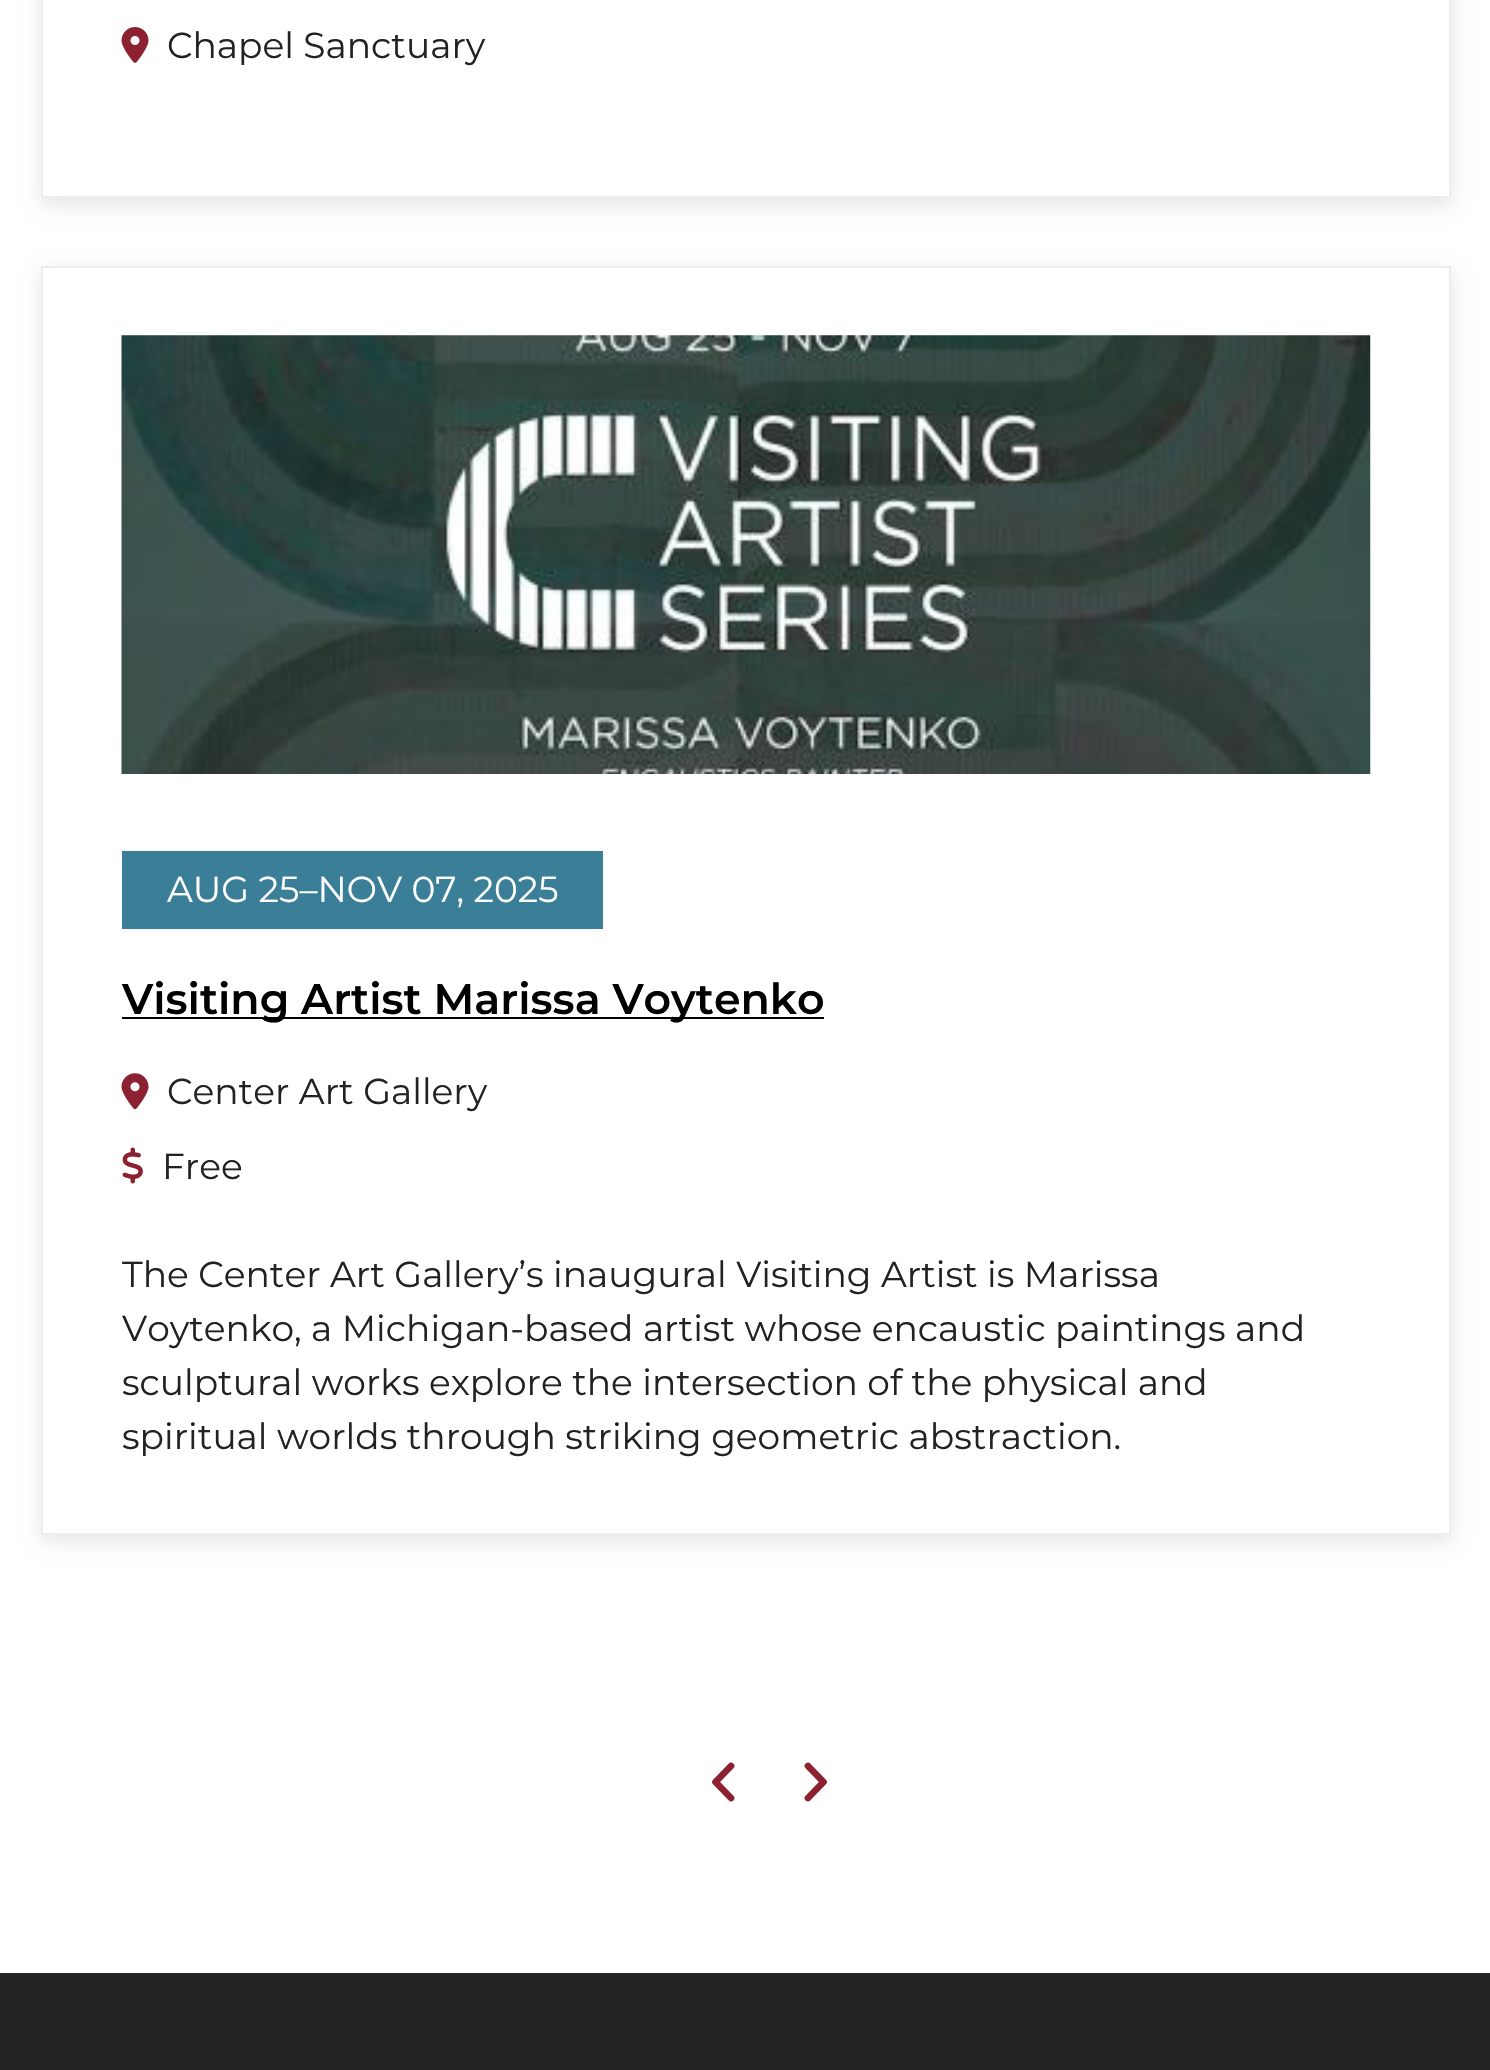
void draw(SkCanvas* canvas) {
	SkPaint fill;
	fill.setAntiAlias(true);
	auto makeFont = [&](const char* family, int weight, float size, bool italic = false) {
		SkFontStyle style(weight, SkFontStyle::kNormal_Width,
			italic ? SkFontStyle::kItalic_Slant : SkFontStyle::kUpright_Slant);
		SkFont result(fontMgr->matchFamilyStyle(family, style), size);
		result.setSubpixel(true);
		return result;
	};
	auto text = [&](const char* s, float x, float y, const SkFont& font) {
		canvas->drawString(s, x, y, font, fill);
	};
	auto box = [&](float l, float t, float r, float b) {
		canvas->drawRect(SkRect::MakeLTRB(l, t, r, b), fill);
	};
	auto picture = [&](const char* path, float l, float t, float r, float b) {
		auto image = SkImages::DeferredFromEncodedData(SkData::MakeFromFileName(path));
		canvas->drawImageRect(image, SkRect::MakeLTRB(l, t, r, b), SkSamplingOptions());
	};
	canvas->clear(0xFFFFFFFF);
	canvas->save();
	canvas->clipPath(SkPathBuilder(SkPathFillType::kEvenOdd).moveTo(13, 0).lineTo(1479, 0).lineTo(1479, 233).lineTo(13, 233).close().moveTo(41, -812).lineTo(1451, -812).lineTo(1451, 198).lineTo(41, 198).close().detach(), true);
	fill.setColor(0x1A000000);
	fill.setMaskFilter(SkMaskFilter::MakeBlur(kNormal_SkBlurStyle, 9));
	canvas->drawRect(SkRect::MakeLTRB(41, -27, 1451, 205), fill);
	fill.setMaskFilter(nullptr);
	canvas->restore();
	fill.setStyle(SkPaint::kStroke_Style);
	fill.setStrokeWidth(2);
	fill.setColor(0xFFEDEDED);
	canvas->drawRect(SkRect::MakeLTRB(42, -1, 1450, 197), fill);
	picture("image0.png", 121, 27, 149, 63);
	canvas->save();
	canvas->clipPath(SkPathBuilder(SkPathFillType::kEvenOdd).moveTo(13, 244).lineTo(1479, 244).lineTo(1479, 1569).lineTo(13, 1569).close().moveTo(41, 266).lineTo(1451, 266).lineTo(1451, 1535).lineTo(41, 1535).close().detach(), true);
	fill.setStyle(SkPaint::kFill_Style);
	fill.setColor(0x1A000000);
	fill.setMaskFilter(SkMaskFilter::MakeBlur(kNormal_SkBlurStyle, 9));
	canvas->drawRect(SkRect::MakeLTRB(41, 272, 1451, 1541), fill);
	fill.setMaskFilter(nullptr);
	canvas->restore();
	fill.setStyle(SkPaint::kStroke_Style);
	fill.setColor(0xFFEDEDED);
	canvas->drawRect(SkRect::MakeLTRB(42, 267, 1450, 1534), fill);
	picture("image1.png", 121, 335, 1371, 774);
	fill.setStyle(SkPaint::kFill_Style);
	fill.setColor(0xFF3B7E97);
	box(122, 851, 603, 929);
	fill.setColor(0xFF000000);
	box(122, 1017, 824, 1019);
	picture("image2.png", 121, 1073, 149, 1110);
	picture("image3.png", 122, 1147, 143, 1184);
	fill.setStyle(SkPaint::kStroke_Style);
	fill.setStrokeWidth(6.8f);
	fill.setStrokeCap(SkPaint::kRound_Cap);
	fill.setStrokeJoin(SkPaint::kRound_Join);
	fill.setColor(0xFF8C2131);
	canvas->drawPath(SkPathBuilder().moveTo(731, 1798).lineTo(715.5f, 1782).lineTo(731, 1766).detach(), fill);
	canvas->drawPath(SkPathBuilder().moveTo(808, 1766).lineTo(823.5f, 1782).lineTo(808, 1798).detach(), fill);
	fill.setStyle(SkPaint::kFill_Style);
	fill.setColor(0xFF232323);
	box(0, 1973, 1490, 2070);
	auto font1 = makeFont("Montserrat", 400, 36);
	fill.setColor(0xFF222222);
	text("Chapel Sanctuary", 167, 58, font1);
	fill.setColor(0xFFFFFFFF);
	text("AUG 25–NOV 07, 2025", 167, 902, font1);
	auto font2 = makeFont("Montserrat", 600, 42.75f);
	fill.setColor(0xFF000000);
	text("Visiting Artist Marissa Voytenko", 122, 1014, font2);
	fill.setColor(0xFF222222);
	text("Center Art Gallery", 167, 1104, font1);
	text("Free", 162, 1179, font1);
	text("The Center Art Gallery’s inaugural Visiting Artist is Marissa", 122, 1287, font1);
	text("Voytenko, a Michigan-based artist whose encaustic paintings and", 122, 1341, font1);
	text("sculptural works explore the intersection of the physical and", 122, 1395, font1);
	text("spiritual worlds through striking geometric abstraction.", 122, 1449, font1);
}
